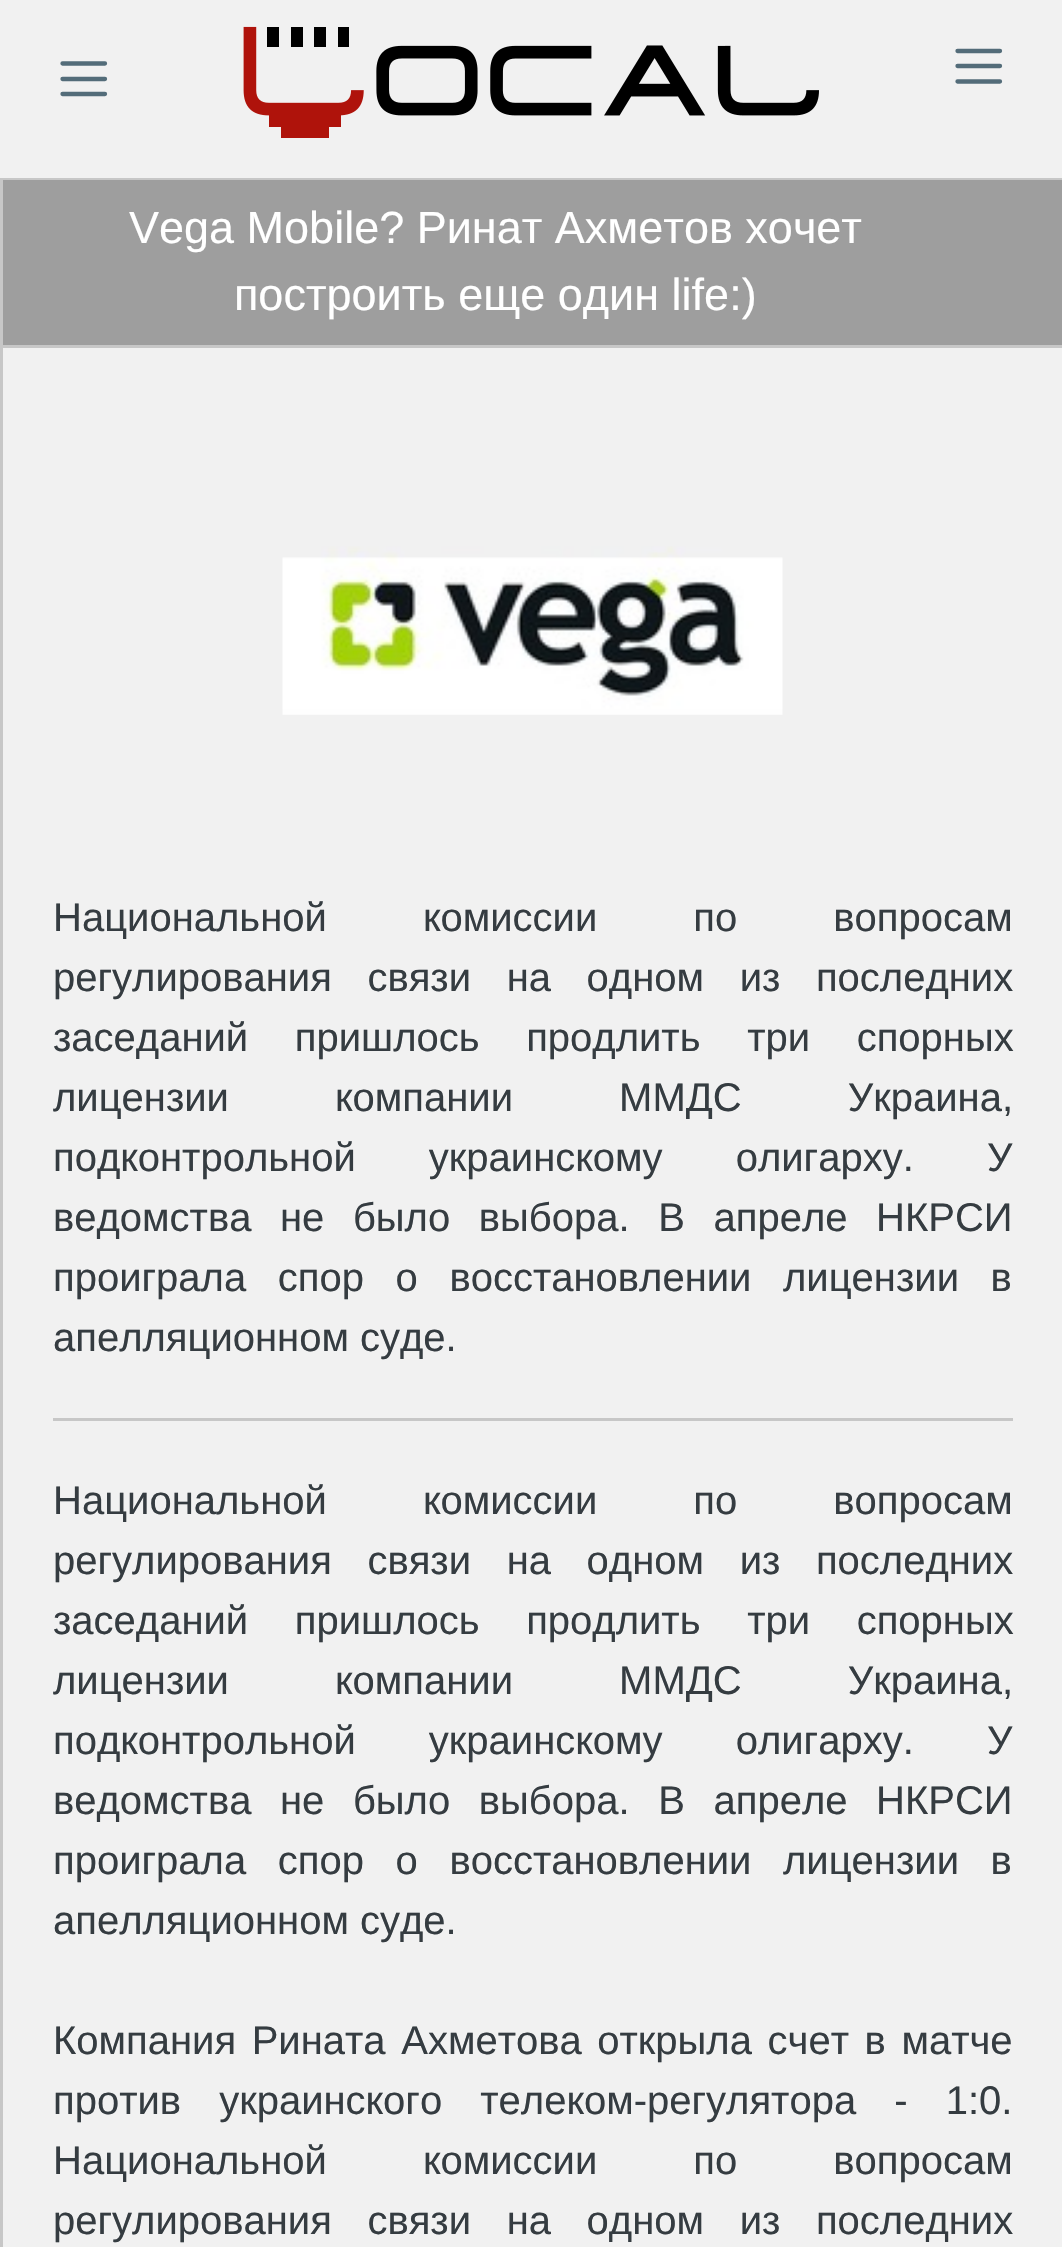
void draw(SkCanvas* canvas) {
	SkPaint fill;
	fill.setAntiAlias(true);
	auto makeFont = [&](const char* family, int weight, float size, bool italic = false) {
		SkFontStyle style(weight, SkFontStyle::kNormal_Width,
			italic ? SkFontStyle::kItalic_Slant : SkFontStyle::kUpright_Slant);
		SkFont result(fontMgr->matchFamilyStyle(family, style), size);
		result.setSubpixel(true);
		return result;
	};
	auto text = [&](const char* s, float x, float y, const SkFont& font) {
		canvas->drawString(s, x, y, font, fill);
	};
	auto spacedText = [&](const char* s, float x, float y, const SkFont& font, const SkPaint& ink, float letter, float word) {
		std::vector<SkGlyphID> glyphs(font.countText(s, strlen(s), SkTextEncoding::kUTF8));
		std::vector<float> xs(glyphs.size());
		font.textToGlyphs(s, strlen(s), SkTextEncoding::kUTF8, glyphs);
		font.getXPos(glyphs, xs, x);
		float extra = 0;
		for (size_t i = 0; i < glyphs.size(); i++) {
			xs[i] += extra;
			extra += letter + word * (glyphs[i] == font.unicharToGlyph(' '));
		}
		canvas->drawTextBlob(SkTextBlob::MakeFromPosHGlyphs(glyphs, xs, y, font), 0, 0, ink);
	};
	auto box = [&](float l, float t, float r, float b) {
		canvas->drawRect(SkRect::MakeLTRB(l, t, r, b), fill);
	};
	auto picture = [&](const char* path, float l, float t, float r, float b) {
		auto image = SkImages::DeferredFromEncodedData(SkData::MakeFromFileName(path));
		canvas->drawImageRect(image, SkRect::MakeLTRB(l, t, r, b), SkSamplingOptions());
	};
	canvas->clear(0xFFF1F1F1);
	fill.setColor(0xFFC7C7C7);
	box(0, 178, 1062, 180);
	fill.setStyle(SkPaint::kStroke_Style);
	fill.setStrokeWidth(4.3f);
	fill.setStrokeCap(SkPaint::kRound_Cap);
	fill.setColor(0xFF536C79);
	canvas->drawPath(SkPathBuilder().moveTo(62.5f, 63.5f).lineTo(105, 63.5f).moveTo(62.5f, 79).lineTo(105, 79).moveTo(62.5f, 94).lineTo(105, 94).detach(), fill);
	picture("image0.png", 243, 26, 819, 138);
	canvas->drawPath(SkPathBuilder().moveTo(957.5f, 51).lineTo(1000, 51).moveTo(957.5f, 66).lineTo(1000, 66).moveTo(957.5f, 81.5f).lineTo(1000, 81.5f).detach(), fill);
	fill.setStyle(SkPaint::kFill_Style);
	fill.setColor(0xFFC7C7C7);
	box(0, 180, 3, 2247);
	fill.setColor(0xFF9E9E9E);
	box(3, 180, 1062, 345);
	fill.setColor(0xFFC7C7C7);
	box(3, 345, 1062, 348);
	picture("image1.png", 282, 546, 783, 715);
	box(53, 1418, 1013, 1421);
	auto font1 = makeFont("Liberation Sans", 400, 45);
	fill.setColor(0xFFFFFFFF);
	text("Vega Mobile? Ринат Ахметов хочет", 129, 243, font1);
	text("построить еще один life:)", 234, 310, font1);
	auto font2 = makeFont("Liberation Sans", 400, 40);
	fill.setColor(0xFF353C41);
	spacedText("Национальной комиссии по вопросам", 53, 931, font2, fill, 0, 85);
	spacedText("регулирования связи на одном из последних", 53, 991, font2, fill, 0, 24.5f);
	spacedText("заседаний пришлось продлить три спорных", 53, 1051, font2, fill, 0, 35.5f);
	spacedText("лицензии компании ММДС Украина,", 53, 1111, font2, fill, 0, 95);
	spacedText("подконтрольной украинскому олигарху. У", 53, 1171, font2, fill, 0, 62);
	spacedText("ведомства не было выбора. В апреле НКРСИ", 53, 1231, font2, fill, 0, 17.5f);
	spacedText("проиграла спор о восстановлении лицензии в", 53, 1291, font2, fill, 0, 20.5f);
	text("апелляционном суде.", 53, 1351, font2);
	spacedText("Национальной комиссии по вопросам", 53, 1514, font2, fill, 0, 85);
	spacedText("регулирования связи на одном из последних", 53, 1574, font2, fill, 0, 24.5f);
	spacedText("заседаний пришлось продлить три спорных", 53, 1634, font2, fill, 0, 35.5f);
	spacedText("лицензии компании ММДС Украина,", 53, 1694, font2, fill, 0, 95);
	spacedText("подконтрольной украинскому олигарху. У", 53, 1754, font2, fill, 0, 62);
	spacedText("ведомства не было выбора. В апреле НКРСИ", 53, 1814, font2, fill, 0, 17.5f);
	spacedText("проиграла спор о восстановлении лицензии в", 53, 1874, font2, fill, 0, 20.5f);
	text("апелляционном суде.", 53, 1934, font2);
	spacedText("Компания Рината Ахметова открыла счет в матче", 53, 2054, font2, fill, 0, 4.5f);
	spacedText("против украинского телеком-регулятора - 1:0.", 53, 2114, font2, fill, 0, 27);
	spacedText("Национальной комиссии по вопросам", 53, 2174, font2, fill, 0, 85);
	spacedText("регулирования связи на одном из последних", 53, 2234, font2, fill, 0, 24.5f);
}
